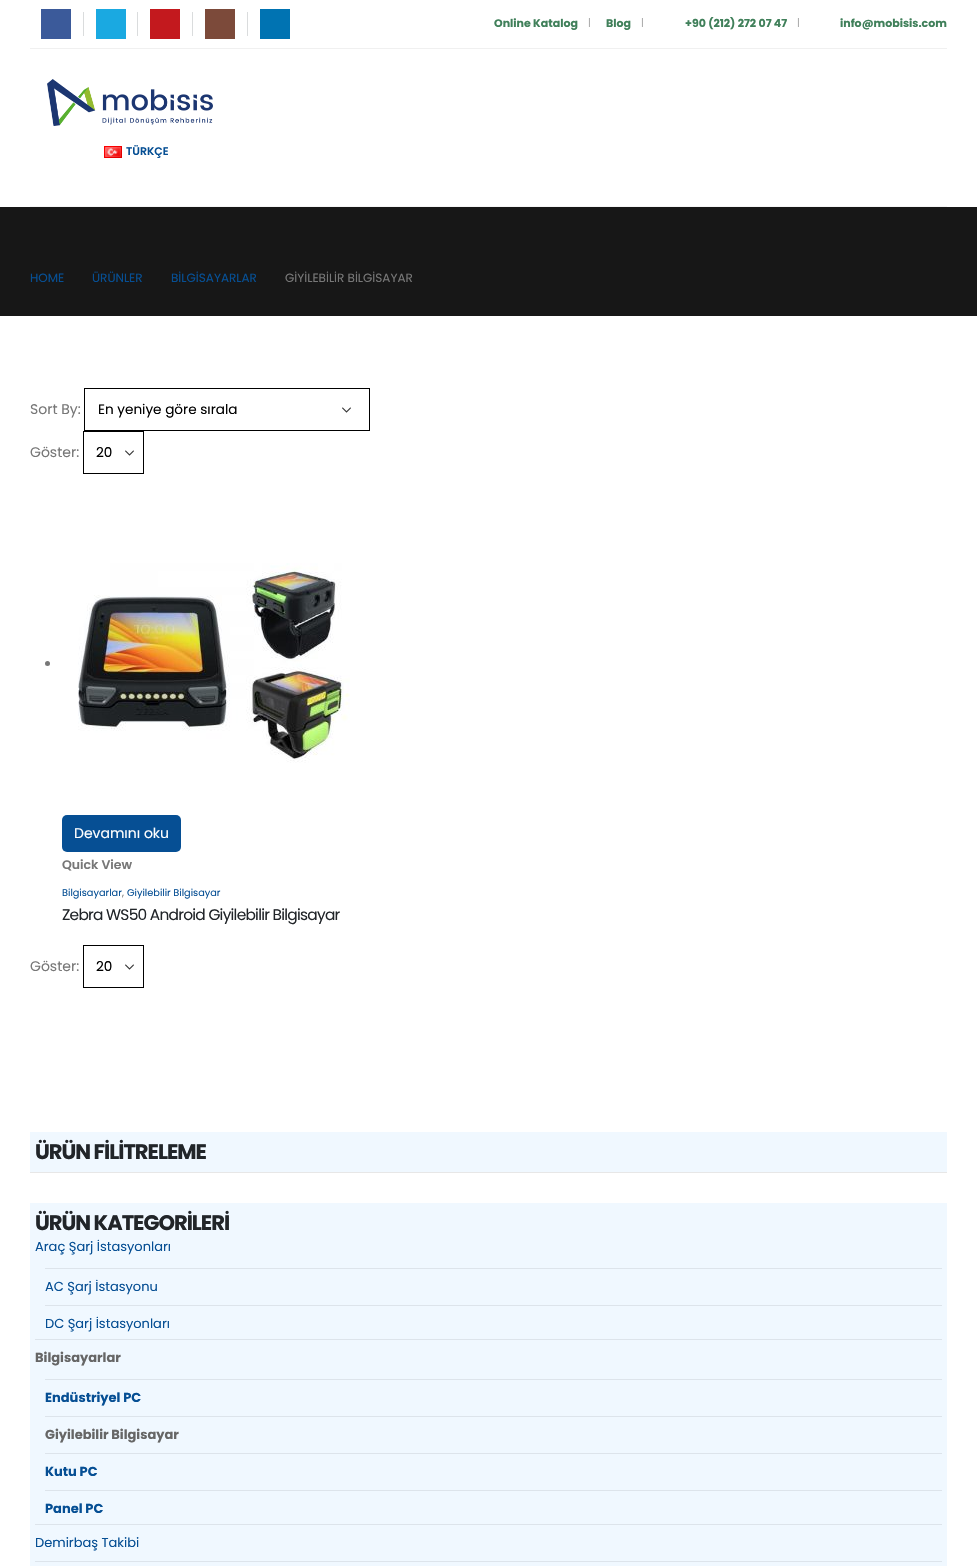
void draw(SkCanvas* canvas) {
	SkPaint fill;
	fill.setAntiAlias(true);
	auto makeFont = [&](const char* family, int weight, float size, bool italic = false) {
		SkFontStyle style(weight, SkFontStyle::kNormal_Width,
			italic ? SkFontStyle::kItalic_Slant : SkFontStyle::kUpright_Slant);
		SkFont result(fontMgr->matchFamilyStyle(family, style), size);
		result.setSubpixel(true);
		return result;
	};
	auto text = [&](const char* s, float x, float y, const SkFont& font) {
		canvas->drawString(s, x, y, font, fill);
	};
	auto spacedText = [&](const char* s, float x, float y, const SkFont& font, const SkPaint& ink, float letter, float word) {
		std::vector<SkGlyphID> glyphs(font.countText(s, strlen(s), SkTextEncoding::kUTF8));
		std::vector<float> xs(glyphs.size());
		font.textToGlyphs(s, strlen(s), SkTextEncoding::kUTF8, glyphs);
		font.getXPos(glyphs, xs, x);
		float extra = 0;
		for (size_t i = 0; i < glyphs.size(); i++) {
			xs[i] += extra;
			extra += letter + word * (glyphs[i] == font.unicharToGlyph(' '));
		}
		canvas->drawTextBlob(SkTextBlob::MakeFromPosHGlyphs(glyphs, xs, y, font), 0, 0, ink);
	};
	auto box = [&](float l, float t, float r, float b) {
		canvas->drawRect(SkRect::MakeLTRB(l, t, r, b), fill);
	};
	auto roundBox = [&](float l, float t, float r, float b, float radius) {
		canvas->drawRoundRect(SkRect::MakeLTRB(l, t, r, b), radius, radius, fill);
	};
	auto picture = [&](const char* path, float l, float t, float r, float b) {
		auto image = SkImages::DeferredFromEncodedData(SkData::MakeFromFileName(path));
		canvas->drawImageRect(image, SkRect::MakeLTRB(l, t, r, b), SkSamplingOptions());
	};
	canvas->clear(0xFFFFFFFF);
	fill.setColor(0xFFF0F0F0);
	box(30, 48, 947, 49);
	fill.setColor(0xFF3B5A9A);
	box(41, 9, 71, 39);
	fill.setColor(0xFF1AA9E1);
	box(96, 9, 126, 39);
	fill.setColor(0xFFDADCDD);
	box(83, 12, 84, 36);
	fill.setColor(0xFFC3191E);
	box(150, 9, 180, 39);
	fill.setColor(0xFFDADCDD);
	box(137, 12, 138, 36);
	fill.setColor(0xFF7C4A3A);
	box(205, 9, 235, 39);
	fill.setColor(0xFFDADCDD);
	box(192, 12, 193, 36);
	fill.setColor(0xFF0073B2);
	box(260, 9, 290, 39);
	fill.setColor(0xFFDADCDD);
	box(247, 12, 248, 36);
	fill.setColor(0xFFF5F5F5);
	box(30, 206, 947, 207);
	picture("image0.png", 47, 79, 213, 126);
	picture("image1.png", 104, 146, 122, 158);
	fill.setColor(0xFF171717);
	box(0, 207, 977, 316);
	picture("image2.png", 342, 407, 351, 413);
	fill.setStyle(SkPaint::kStroke_Style);
	fill.setStrokeWidth(1);
	fill.setColor(0xFF000000);
	canvas->drawRect(SkRect::MakeLTRB(84.5f, 388.5f, 369.5f, 430.5f), fill);
	picture("image2.png", 125, 450, 134, 456);
	canvas->drawRect(SkRect::MakeLTRB(83.5f, 431.5f, 143.5f, 473.5f), fill);
	fill.setStyle(SkPaint::kFill_Style);
	fill.setColor(0xFF777777);
	canvas->drawCircle(47.5f, 663.5f, 2.5f, fill);
	picture("image3.png", 78, 563, 350, 763);
	fill.setColor(0xFF064F94);
	roundBox(62, 815, 181, 852, 5);
	picture("image2.png", 125, 964, 134, 970);
	fill.setStyle(SkPaint::kStroke_Style);
	fill.setColor(0xFF000000);
	canvas->drawRect(SkRect::MakeLTRB(83.5f, 945.5f, 143.5f, 987.5f), fill);
	fill.setStyle(SkPaint::kFill_Style);
	fill.setColor(0xFFF0F8FF);
	box(30, 1132, 947, 1172);
	fill.setColor(0xFFE7E7E7);
	box(30, 1172, 947, 1173);
	fill.setColor(0xFFF0F8FF);
	box(30, 1203, 947, 1566);
	fill.setColor(0xFFDDE4EB);
	box(45, 1268, 942, 1269);
	box(45, 1305, 942, 1306);
	box(35, 1339, 942, 1340);
	box(45, 1379, 942, 1380);
	box(45, 1416, 942, 1417);
	box(45, 1453, 942, 1454);
	box(45, 1490, 942, 1491);
	box(35, 1524, 942, 1525);
	box(35, 1561, 942, 1562);
	auto font1 = makeFont("Poppins", 700, 11);
	fill.setColor(0xFF40805A);
	text("Online Katalog", 494, 27, font1);
	auto font2 = makeFont("Poppins", 300, 10);
	fill.setColor(0xFF929292);
	text("|", 588, 26, font2);
	fill.setColor(0xFF40805A);
	text("Blog", 606, 27, font1);
	fill.setColor(0xFF929292);
	text("|", 641, 26, font2);
	fill.setColor(0xFF40805A);
	text("+90 (212) 272 07 47", 685, 27, font1);
	fill.setColor(0xFF929292);
	text("|", 797, 26, font2);
	fill.setColor(0xFF40805A);
	text("info@mobisis.com", 840, 27, font1);
	auto font3 = makeFont("Poppins", 600, 11);
	fill.setColor(0xFF064F94);
	text("TÜRKÇE", 126, 155, font3);
	auto font4 = makeFont("Poppins", 400, 12);
	text("HOME", 30, 282, font4);
	text("ÜRÜNLER", 92, 282, font4);
	text("BİLGİSAYARLAR", 171, 282, font4);
	fill.setColor(0xFF777777);
	text("GİYİLEBİLİR BİLGİSAYAR", 285, 282, font4);
	auto font5 = makeFont("Poppins", 400, 14);
	text("Sort By:", 30, 414, font5);
	auto font6 = makeFont("Poppins", 400, 13.6f);
	fill.setColor(0xFF000000);
	text("En yeniye göre sırala", 98, 414, font6);
	fill.setColor(0xFF777777);
	text("Göster:", 30, 457, font5);
	fill.setColor(0xFF000000);
	text("20", 96, 457, font6);
	fill.setColor(0xFFFFFFFF);
	text("Devamını oku", 74, 838, font5);
	auto font7 = makeFont("Poppins", 600, 12.5f);
	fill.setColor(0xFF777777);
	text("Quick View", 62, 869, font7);
	auto font8 = makeFont("Poppins", 400, 9.75f);
	fill.setColor(0xFF064F94);
	text("Bilgisayarlar", 62, 896, font8);
	fill.setColor(0xFF777777);
	text(",", 122, 896, font8);
	fill.setColor(0xFF064F94);
	text("Giyilebilir Bilgisayar", 127, 896, font8);
	auto font9 = makeFont("Poppins", 400, 15.4f);
	fill.setColor(0xFF212529);
	spacedText("Zebra WS50 Android Giyilebilir Bilgisayar", 62, 920, font9, fill, -0.75f, 0);
	fill.setColor(0xFF777777);
	text("Göster:", 30, 971, font5);
	fill.setColor(0xFF000000);
	text("20", 96, 971, font6);
	auto font10 = makeFont("Poppins", 700, 21);
	fill.setColor(0xFF212529);
	spacedText("ÜRÜN FİLİTRELEME", 35, 1159, font10, fill, -1, 0);
	spacedText("ÜRÜN KATEGORİLERİ", 35, 1230, font10, fill, -1, 0);
	auto font11 = makeFont("Poppins", 400, 13);
	fill.setColor(0xFF064F94);
	text("Araç Şarj İstasyonları", 35, 1251, font11);
	text("AC Şarj İstasyonu", 45, 1291, font11);
	text("DC Şarj İstasyonları", 45, 1328, font11);
	auto font12 = makeFont("Poppins", 700, 13);
	fill.setColor(0xFF666666);
	text("Bilgisayarlar", 35, 1362, font12);
	fill.setColor(0xFF064F94);
	text("Endüstriyel PC", 45, 1402, font12);
	fill.setColor(0xFF666666);
	text("Giyilebilir Bilgisayar", 45, 1439, font12);
	fill.setColor(0xFF064F94);
	text("Kutu PC", 45, 1476, font12);
	text("Panel PC", 45, 1513, font12);
	text("Demirbaş Takibi", 35, 1547, font11);
}
